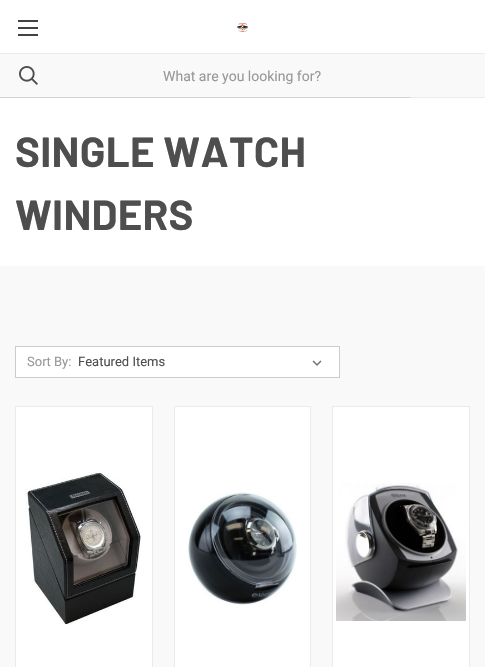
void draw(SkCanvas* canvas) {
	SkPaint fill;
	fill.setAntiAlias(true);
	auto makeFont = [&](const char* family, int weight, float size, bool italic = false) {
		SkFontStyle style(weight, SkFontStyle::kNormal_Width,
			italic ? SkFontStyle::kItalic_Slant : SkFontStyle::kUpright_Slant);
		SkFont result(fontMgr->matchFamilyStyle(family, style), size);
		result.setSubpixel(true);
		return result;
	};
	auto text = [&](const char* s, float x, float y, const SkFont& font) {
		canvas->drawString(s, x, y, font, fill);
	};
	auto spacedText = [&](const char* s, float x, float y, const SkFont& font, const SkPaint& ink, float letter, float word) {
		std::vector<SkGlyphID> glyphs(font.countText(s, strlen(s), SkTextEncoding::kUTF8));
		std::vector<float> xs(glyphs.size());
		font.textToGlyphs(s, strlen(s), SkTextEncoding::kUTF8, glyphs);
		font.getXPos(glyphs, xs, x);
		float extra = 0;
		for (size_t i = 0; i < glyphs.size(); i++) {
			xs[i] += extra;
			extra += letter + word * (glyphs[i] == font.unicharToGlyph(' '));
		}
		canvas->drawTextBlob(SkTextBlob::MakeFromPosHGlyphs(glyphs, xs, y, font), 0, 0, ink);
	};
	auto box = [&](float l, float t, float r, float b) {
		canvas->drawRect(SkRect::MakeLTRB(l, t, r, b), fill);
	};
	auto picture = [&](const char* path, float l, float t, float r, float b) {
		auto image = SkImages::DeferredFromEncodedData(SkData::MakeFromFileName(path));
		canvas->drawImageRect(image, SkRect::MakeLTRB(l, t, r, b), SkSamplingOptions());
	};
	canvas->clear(0xFFFFFFFF);
	fill.setColor(0xFFEBEBEB);
	box(410, 97, 485, 98);
	fill.setColor(0xFF424242);
	box(18, 27, 38, 29);
	box(18, 20, 38, 22);
	box(18, 34, 38, 36);
	picture("image0.png", 236, 22, 249, 32);
	fill.setColor(0xFFF9F9F9);
	box(0, 54, 485, 97);
	picture("image1.png", 19, 66, 38, 85);
	fill.setColor(0xFFEBEBEB);
	box(0, 53, 485, 54);
	fill.setColor(0xFFD2D2D2);
	box(0, 97, 410, 98);
	fill.setColor(0xFFF9F9F9);
	box(0, 266, 485, 667);
	fill.setColor(0xFFFFFFFF);
	canvas->drawRect(SkRect::MakeLTRB(15.5f, 346.5f, 339.5f, 377.5f), fill);
	fill.setStyle(SkPaint::kStroke_Style);
	fill.setStrokeWidth(1);
	fill.setColor(0xFFCCCCCC);
	canvas->drawRect(SkRect::MakeLTRB(15.5f, 346.5f, 339.5f, 377.5f), fill);
	picture("image2.png", 312, 360, 322, 366);
	fill.setStyle(SkPaint::kFill_Style);
	fill.setColor(0xFFFFFFFF);
	canvas->drawRect(SkRect::MakeLTRB(15.5f, 406.5f, 152.5f, 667.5f), fill);
	fill.setStyle(SkPaint::kStroke_Style);
	fill.setColor(0xFFEBEBEB);
	canvas->drawRect(SkRect::MakeLTRB(15.5f, 406.5f, 152.5f, 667.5f), fill);
	picture("image3.png", 25, 471, 142, 625);
	fill.setStyle(SkPaint::kFill_Style);
	fill.setColor(0xFFFFFFFF);
	canvas->drawRect(SkRect::MakeLTRB(174.5f, 406.5f, 310.5f, 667.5f), fill);
	fill.setStyle(SkPaint::kStroke_Style);
	fill.setColor(0xFFEBEBEB);
	canvas->drawRect(SkRect::MakeLTRB(174.5f, 406.5f, 310.5f, 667.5f), fill);
	picture("image4.png", 188, 492, 297, 605);
	fill.setStyle(SkPaint::kFill_Style);
	fill.setColor(0xFFFFFFFF);
	canvas->drawRect(SkRect::MakeLTRB(332.5f, 406.5f, 469.5f, 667.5f), fill);
	fill.setStyle(SkPaint::kStroke_Style);
	fill.setColor(0xFFEBEBEB);
	canvas->drawRect(SkRect::MakeLTRB(332.5f, 406.5f, 469.5f, 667.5f), fill);
	picture("image5.png", 336, 483, 466, 621);
	auto font1 = makeFont("Roboto", 400, 14);
	fill.setStyle(SkPaint::kFill_Style);
	fill.setColor(0xFF989898);
	text("What are you looking for?", 163, 81, font1);
	auto font2 = makeFont("Barlow", 700, 42);
	fill.setColor(0xFF4E4E4E);
	spacedText("SINGLE WATCH", 15, 167, font2, fill, 0.25f, 0);
	spacedText("WINDERS", 15, 230, font2, fill, 0.25f, 0);
	auto font3 = makeFont("Roboto", 400, 13);
	fill.setColor(0xFF989898);
	text("Sort By:", 27, 366, font3);
	fill.setColor(0xFF4E4E4E);
	text("Featured Items", 78, 366, font3);
}
